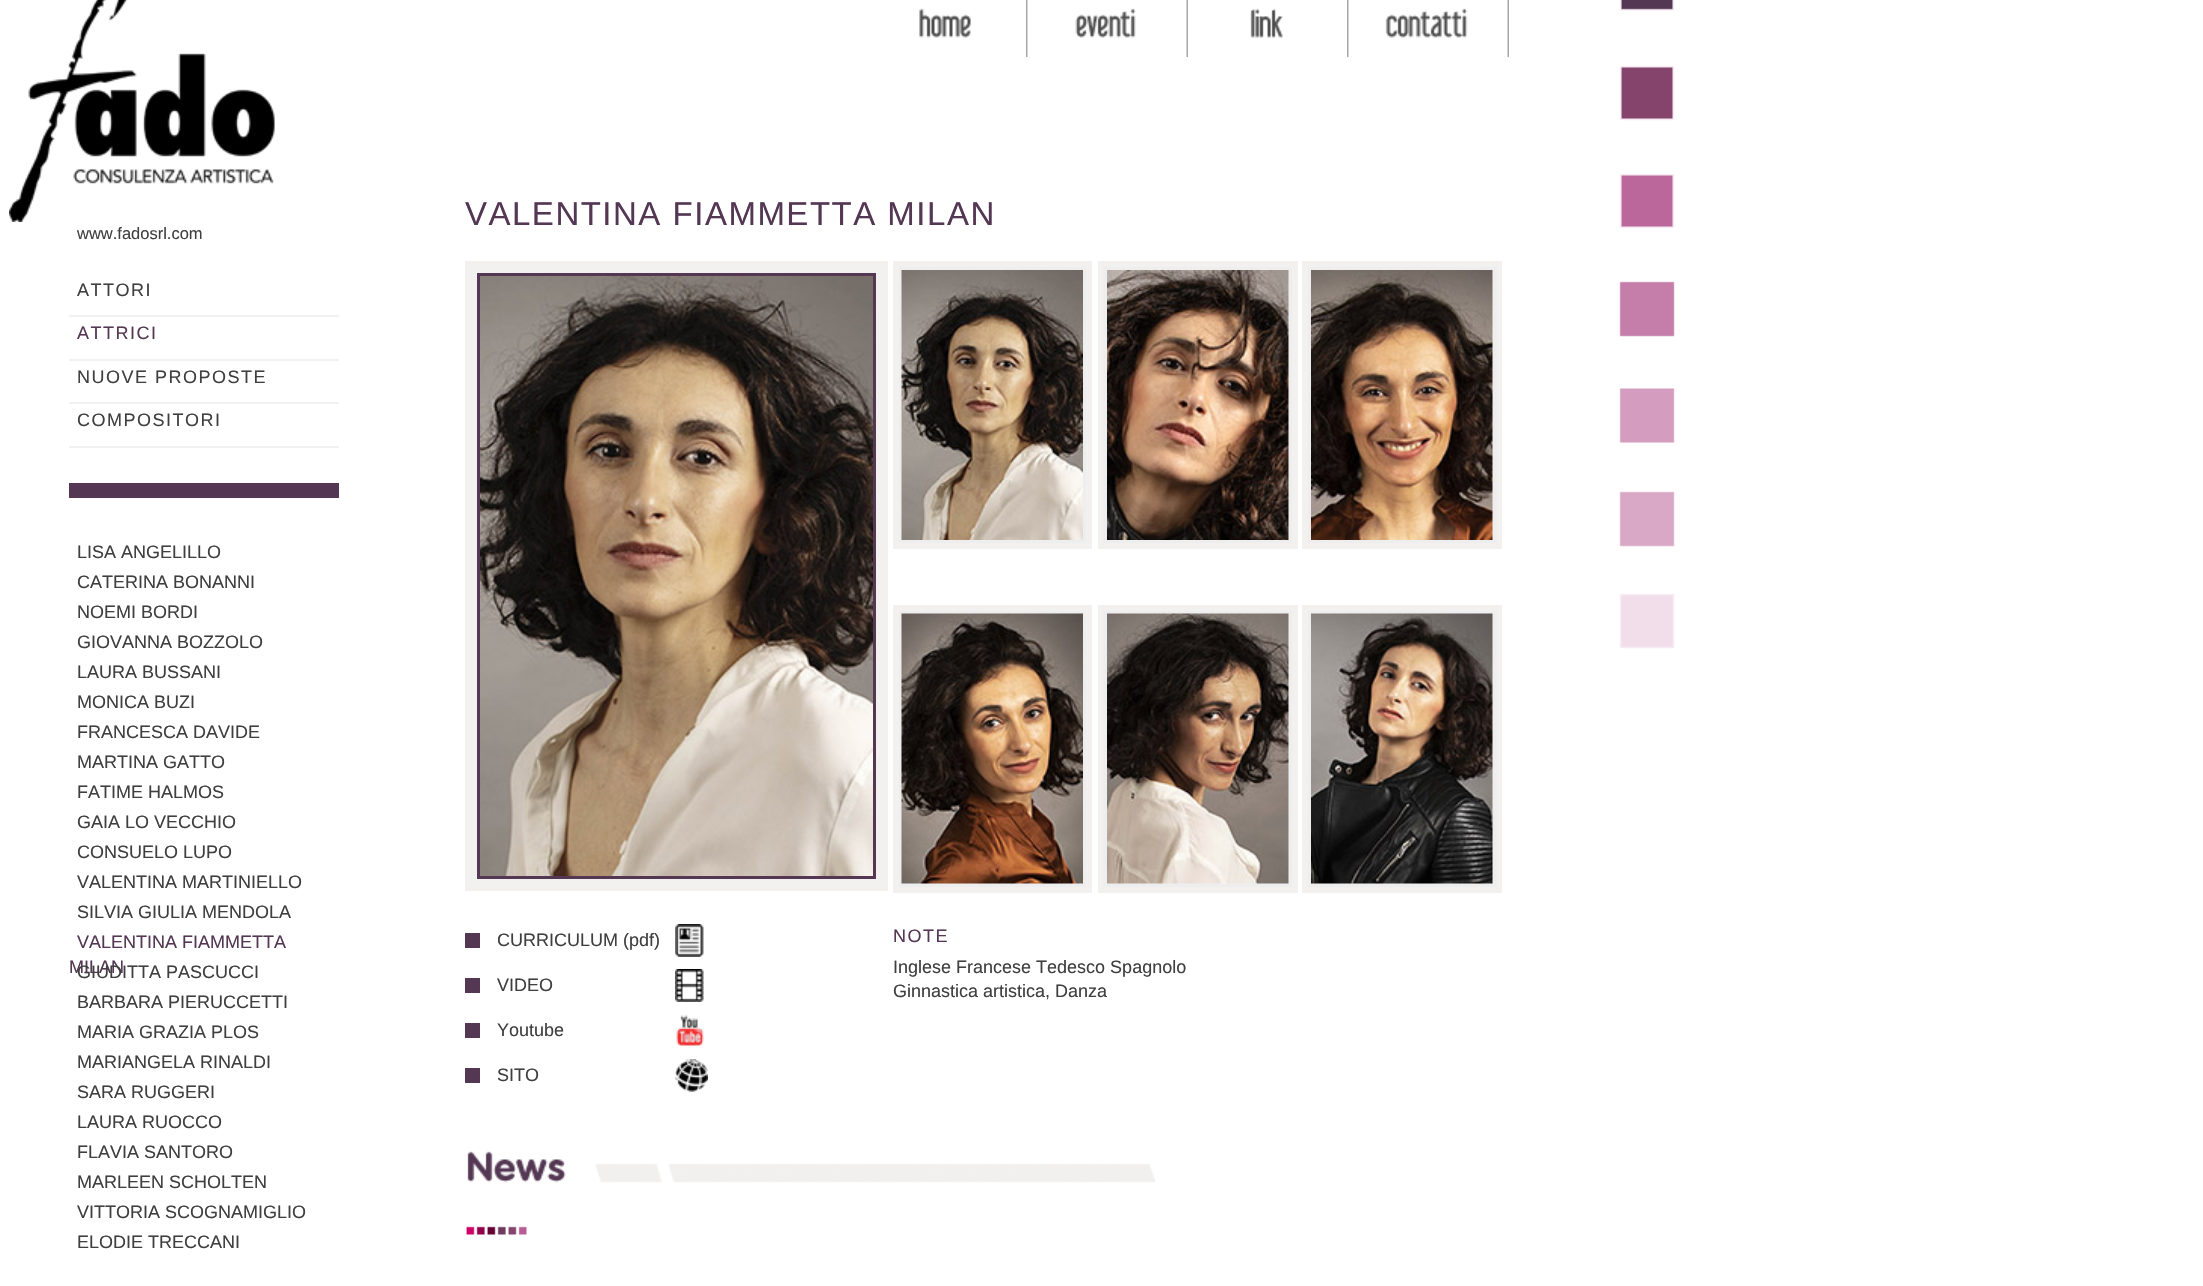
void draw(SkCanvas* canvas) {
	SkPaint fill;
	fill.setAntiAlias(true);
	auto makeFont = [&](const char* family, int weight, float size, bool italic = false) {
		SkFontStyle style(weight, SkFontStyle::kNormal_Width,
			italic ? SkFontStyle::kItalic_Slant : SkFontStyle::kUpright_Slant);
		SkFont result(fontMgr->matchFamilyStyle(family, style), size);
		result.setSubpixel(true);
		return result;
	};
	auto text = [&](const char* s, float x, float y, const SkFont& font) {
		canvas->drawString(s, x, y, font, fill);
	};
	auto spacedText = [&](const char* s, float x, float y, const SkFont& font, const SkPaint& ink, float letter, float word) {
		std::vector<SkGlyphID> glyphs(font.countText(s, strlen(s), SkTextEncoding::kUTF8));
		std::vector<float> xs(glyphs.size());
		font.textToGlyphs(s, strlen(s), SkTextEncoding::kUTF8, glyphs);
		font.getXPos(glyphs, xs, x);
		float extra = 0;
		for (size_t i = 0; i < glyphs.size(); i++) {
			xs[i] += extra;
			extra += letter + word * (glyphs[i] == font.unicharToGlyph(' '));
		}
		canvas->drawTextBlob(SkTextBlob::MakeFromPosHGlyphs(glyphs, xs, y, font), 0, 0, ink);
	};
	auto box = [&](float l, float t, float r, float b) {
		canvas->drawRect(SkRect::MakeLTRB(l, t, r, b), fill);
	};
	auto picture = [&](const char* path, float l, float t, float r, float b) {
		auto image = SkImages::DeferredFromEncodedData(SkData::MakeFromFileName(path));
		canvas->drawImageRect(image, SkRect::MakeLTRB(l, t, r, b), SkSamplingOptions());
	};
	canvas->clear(0xFFFFFFFF);
	picture("image0.png", 1619, 0, 1675, 649);
	picture("image1.png", 919, 8, 971, 38);
	picture("image2.png", 1026, 0, 1028, 57);
	picture("image3.png", 1075, 8, 1136, 38);
	picture("image4.png", 1186, 0, 1188, 57);
	picture("image5.png", 1250, 8, 1283, 38);
	picture("image2.png", 1347, 0, 1349, 57);
	picture("image6.png", 1385, 8, 1468, 38);
	picture("image4.png", 1507, 0, 1509, 57);
	picture("image7.png", 9, 0, 275, 222);
	fill.setColor(0xFFF3F1F0);
	box(69, 315, 339, 317);
	box(69, 359, 339, 361);
	box(69, 402, 339, 404);
	box(69, 446, 339, 448);
	fill.setColor(0xFF533753);
	box(69, 483, 339, 498);
	canvas->drawRect(SkRect::MakeLTRB(471, 267, 882, 885), fill);
	fill.setStyle(SkPaint::kStroke_Style);
	fill.setStrokeWidth(12);
	fill.setColor(0xFFF3F1F0);
	canvas->drawRect(SkRect::MakeLTRB(471, 267, 882, 885), fill);
	picture("image8.png", 480, 276, 873, 876);
	fill.setStyle(SkPaint::kFill_Style);
	fill.setColor(0xFFEEEEEE);
	canvas->drawRect(SkRect::MakeLTRB(896, 264, 1089, 546), fill);
	fill.setStyle(SkPaint::kStroke_Style);
	fill.setStrokeWidth(6);
	fill.setColor(0xFFF3F1F0);
	canvas->drawRect(SkRect::MakeLTRB(896, 264, 1089, 546), fill);
	picture("image9.png", 901, 270, 1083, 540);
	fill.setStyle(SkPaint::kFill_Style);
	fill.setColor(0xFFEEEEEE);
	canvas->drawRect(SkRect::MakeLTRB(1101, 264, 1295, 546), fill);
	fill.setStyle(SkPaint::kStroke_Style);
	fill.setColor(0xFFF3F1F0);
	canvas->drawRect(SkRect::MakeLTRB(1101, 264, 1295, 546), fill);
	picture("image10.png", 1107, 270, 1289, 540);
	fill.setStyle(SkPaint::kFill_Style);
	fill.setColor(0xFFEEEEEE);
	canvas->drawRect(SkRect::MakeLTRB(1305, 264, 1499, 546), fill);
	fill.setStyle(SkPaint::kStroke_Style);
	fill.setColor(0xFFF3F1F0);
	canvas->drawRect(SkRect::MakeLTRB(1305, 264, 1499, 546), fill);
	picture("image11.png", 1311, 270, 1493, 540);
	fill.setStyle(SkPaint::kFill_Style);
	fill.setColor(0xFFEEEEEE);
	canvas->drawRect(SkRect::MakeLTRB(896, 608, 1089, 890), fill);
	fill.setStyle(SkPaint::kStroke_Style);
	fill.setColor(0xFFF3F1F0);
	canvas->drawRect(SkRect::MakeLTRB(896, 608, 1089, 890), fill);
	picture("image12.png", 901, 613, 1083, 884);
	fill.setStyle(SkPaint::kFill_Style);
	fill.setColor(0xFFEEEEEE);
	canvas->drawRect(SkRect::MakeLTRB(1101, 608, 1295, 890), fill);
	fill.setStyle(SkPaint::kStroke_Style);
	fill.setColor(0xFFF3F1F0);
	canvas->drawRect(SkRect::MakeLTRB(1101, 608, 1295, 890), fill);
	picture("image13.png", 1107, 613, 1289, 884);
	fill.setStyle(SkPaint::kFill_Style);
	fill.setColor(0xFFEEEEEE);
	canvas->drawRect(SkRect::MakeLTRB(1305, 608, 1499, 890), fill);
	fill.setStyle(SkPaint::kStroke_Style);
	fill.setColor(0xFFF3F1F0);
	canvas->drawRect(SkRect::MakeLTRB(1305, 608, 1499, 890), fill);
	picture("image14.png", 1311, 613, 1493, 884);
	fill.setStyle(SkPaint::kFill_Style);
	fill.setColor(0xFF533753);
	box(465, 933, 480, 948);
	picture("image15.png", 675, 924, 704, 957);
	box(465, 978, 480, 993);
	picture("image16.png", 675, 969, 704, 1002);
	box(465, 1023, 480, 1038);
	picture("image17.png", 675, 1015, 705, 1046);
	box(465, 1068, 480, 1083);
	picture("image18.png", 675, 1059, 708, 1092);
	picture("image19.png", 467, 1151, 1155, 1183);
	picture("image20.png", 466, 1226, 527, 1235);
	auto font1 = makeFont("Liberation Sans", 400, 16.5f);
	fill.setColor(0xFF3F3F3F);
	text("www.fadosrl.com", 77, 239, font1);
	auto font2 = makeFont("Liberation Sans", 400, 18);
	spacedText("ATTORI", 77, 296, font2, fill, 1.5f, 0);
	fill.setColor(0xFF533753);
	spacedText("ATTRICI", 77, 339, font2, fill, 1.5f, 0);
	fill.setColor(0xFF3F3F3F);
	spacedText("NUOVE PROPOSTE", 77, 383, font2, fill, 1.5f, 0);
	spacedText("COMPOSITORI", 77, 426, font2, fill, 1.5f, 0);
	text("LISA ANGELILLO", 77, 558, font2);
	text("CATERINA BONANNI", 77, 588, font2);
	text("NOEMI BORDI", 77, 618, font2);
	text("GIOVANNA BOZZOLO", 77, 648, font2);
	text("LAURA BUSSANI", 77, 678, font2);
	text("MONICA BUZI", 77, 708, font2);
	text("FRANCESCA DAVIDE", 77, 738, font2);
	text("MARTINA GATTO", 77, 768, font2);
	text("FATIME HALMOS", 77, 798, font2);
	text("GAIA LO VECCHIO", 77, 828, font2);
	text("CONSUELO LUPO", 77, 858, font2);
	text("VALENTINA MARTINIELLO", 77, 888, font2);
	text("SILVIA GIULIA MENDOLA", 77, 918, font2);
	fill.setColor(0xFF533753);
	text("VALENTINA FIAMMETTA", 77, 948, font2);
	text("MILAN", 69, 973, font2);
	fill.setColor(0xFF3F3F3F);
	text("GIUDITTA PASCUCCI", 77, 978, font2);
	text("BARBARA PIERUCCETTI", 77, 1008, font2);
	text("MARIA GRAZIA PLOS", 77, 1038, font2);
	text("MARIANGELA RINALDI", 77, 1068, font2);
	text("SARA RUGGERI", 77, 1098, font2);
	text("LAURA RUOCCO", 77, 1128, font2);
	text("FLAVIA SANTORO", 77, 1158, font2);
	text("MARLEEN SCHOLTEN", 77, 1188, font2);
	text("VITTORIA SCOGNAMIGLIO", 77, 1218, font2);
	text("ELODIE TRECCANI", 77, 1248, font2);
	auto font3 = makeFont("Liberation Sans", 400, 33);
	fill.setColor(0xFF533753);
	spacedText("VALENTINA FIAMMETTA MILAN", 465, 225, font3, fill, 1.5f, 0);
	fill.setColor(0xFF3F3F3F);
	text("CURRICULUM (pdf)", 497, 946, font2);
	text("VIDEO", 497, 991, font2);
	text("Youtube", 497, 1036, font2);
	text("SITO", 497, 1081, font2);
	fill.setColor(0xFF533753);
	spacedText("NOTE", 893, 942, font2, fill, 1.5f, 0);
	fill.setColor(0xFF3F3F3F);
	text("Inglese Francese Tedesco Spagnolo", 893, 973, font2);
	text("Ginnastica artistica, Danza", 893, 997, font2);
}
